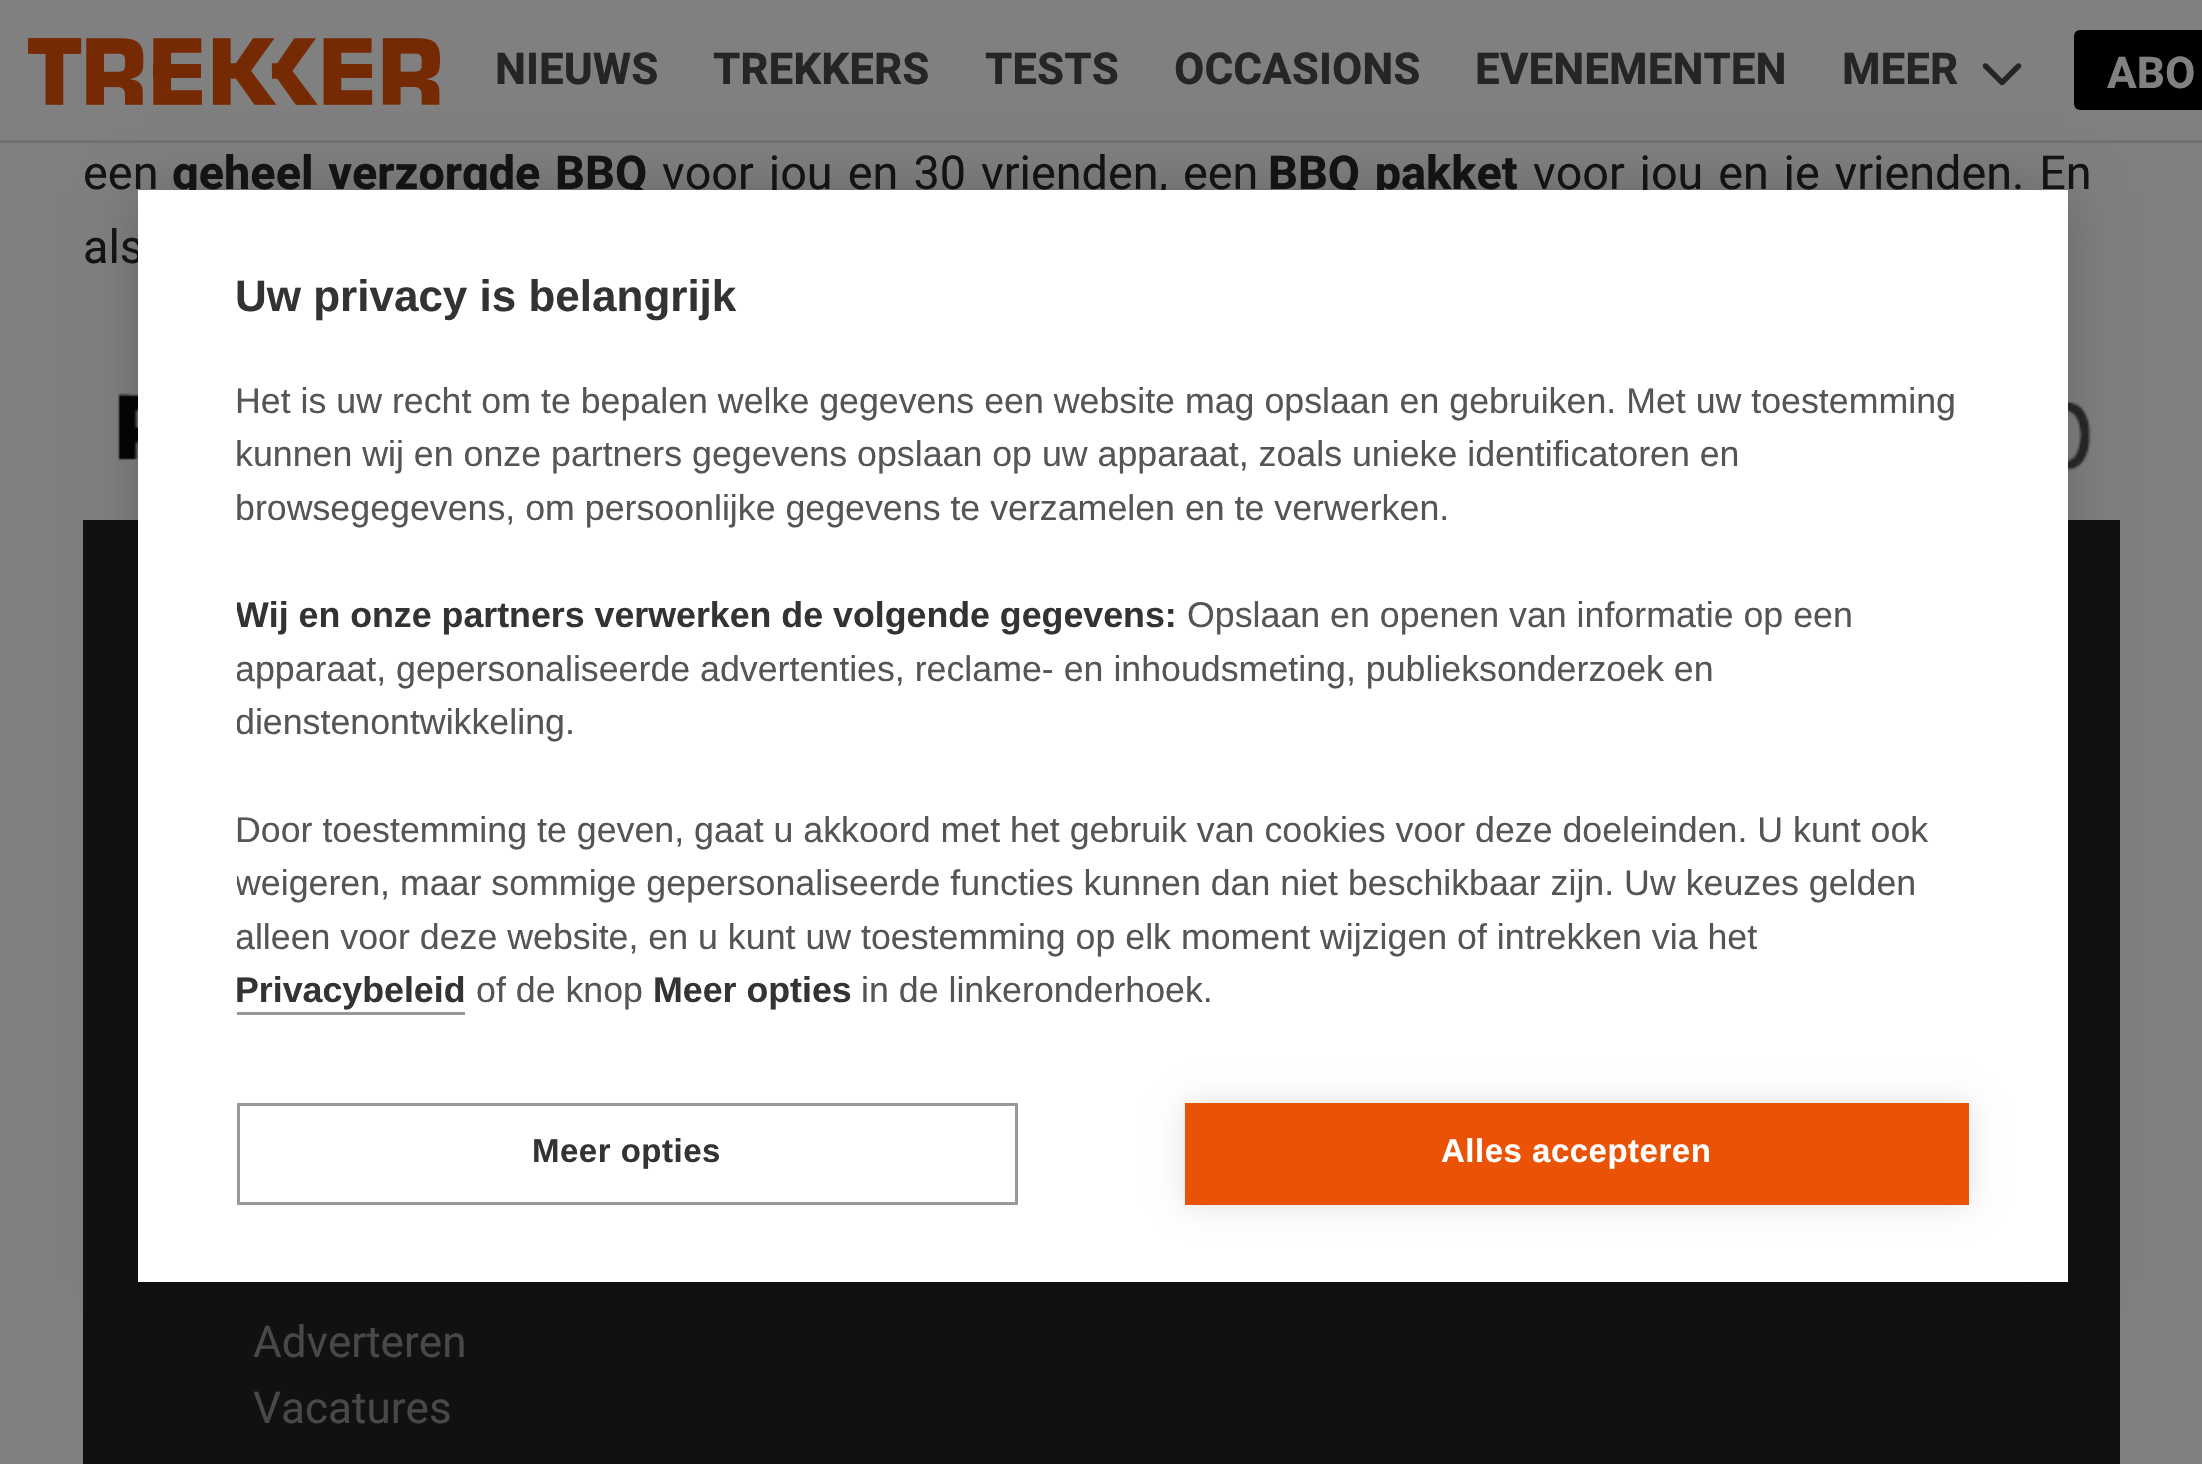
void draw(SkCanvas* canvas) {
	SkPaint fill;
	fill.setAntiAlias(true);
	auto makeFont = [&](const char* family, int weight, float size, bool italic = false) {
		SkFontStyle style(weight, SkFontStyle::kNormal_Width,
			italic ? SkFontStyle::kItalic_Slant : SkFontStyle::kUpright_Slant);
		SkFont result(fontMgr->matchFamilyStyle(family, style), size);
		result.setSubpixel(true);
		return result;
	};
	auto text = [&](const char* s, float x, float y, const SkFont& font) {
		canvas->drawString(s, x, y, font, fill);
	};
	auto spacedText = [&](const char* s, float x, float y, const SkFont& font, const SkPaint& ink, float letter, float word) {
		std::vector<SkGlyphID> glyphs(font.countText(s, strlen(s), SkTextEncoding::kUTF8));
		std::vector<float> xs(glyphs.size());
		font.textToGlyphs(s, strlen(s), SkTextEncoding::kUTF8, glyphs);
		font.getXPos(glyphs, xs, x);
		float extra = 0;
		for (size_t i = 0; i < glyphs.size(); i++) {
			xs[i] += extra;
			extra += letter + word * (glyphs[i] == font.unicharToGlyph(' '));
		}
		canvas->drawTextBlob(SkTextBlob::MakeFromPosHGlyphs(glyphs, xs, y, font), 0, 0, ink);
	};
	auto box = [&](float l, float t, float r, float b) {
		canvas->drawRect(SkRect::MakeLTRB(l, t, r, b), fill);
	};
	auto roundBox = [&](float l, float t, float r, float b, float radius) {
		canvas->drawRoundRect(SkRect::MakeLTRB(l, t, r, b), radius, radius, fill);
	};
	auto picture = [&](const char* path, float l, float t, float r, float b) {
		auto image = SkImages::DeferredFromEncodedData(SkData::MakeFromFileName(path));
		canvas->drawImageRect(image, SkRect::MakeLTRB(l, t, r, b), SkSamplingOptions());
	};
	canvas->clear(0xFF808080);
	fill.setColor(0xFF717171);
	box(0, 140, 2202, 143);
	picture("image0.png", 28, 38, 440, 105);
	picture("image1.png", 1982, 63, 2022, 86);
	fill.setColor(0xFF000000);
	roundBox(2074, 30, 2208, 110, 6);
	picture("image2.png", 118, 336, 2092, 510);
	fill.setColor(0xFF111111);
	box(83, 520, 2120, 1464);
	fill.setColor(0x33000000);
	fill.setMaskFilter(SkMaskFilter::MakeBlur(kNormal_SkBlurStyle, 27.5f));
	canvas->drawRect(SkRect::MakeLTRB(138, 190, 2068, 1282), fill);
	fill.setMaskFilter(nullptr);
	auto font1 = makeFont("Heebo", 700, 44);
	fill.setColor(0xFF252525);
	text("NIEUWS", 495, 84, font1);
	text("TREKKERS", 713, 84, font1);
	text("TESTS", 985, 84, font1);
	text("OCCASIONS", 1174, 84, font1);
	text("EVENEMENTEN", 1475, 84, font1);
	text("MEER", 1842, 84, font1);
	fill.setColor(0xFF808080);
	text("ABO", 2107, 88, font1);
	auto font2 = makeFont("Heebo", 400, 46.75f);
	fill.setColor(0xFF131313);
	text("een", 83, 189, font2);
	auto font3 = makeFont("Heebo", 700, 46.75f);
	spacedText("geheel verzorgde BBQ", 172, 189, font3, fill, 0, 3);
	spacedText("voor jou en 30 vrienden, een", 662, 189, font2, fill, 0, 3.5f);
	spacedText("BBQ pakket", 1268, 189, font3, fill, 0, 3);
	spacedText("voor jou en je vrienden. En", 1533, 189, font2, fill, 0, 3.25f);
	spacedText("als", 83, 263, font2, fill, 0, 3);
	auto font4 = makeFont("Heebo", 400, 44);
	fill.setColor(0xFF484848);
	text("Adverteren", 253, 1357, font4);
	text("Vacatures", 253, 1423, font4);
	fill.setColor(0xFFFFFFFF);
	box(138, 190, 2068, 1282);
	auto font5 = makeFont("Liberation Sans", 700, 44);
	fill.setColor(0xFF333333);
	text("Uw privacy is belangrijk", 235, 311, font5);
	auto font6 = makeFont("Liberation Sans", 400, 35.75f);
	fill.setColor(0xFF555555);
	text("Het is uw recht om te bepalen welke gegevens een website mag opslaan en gebruiken. Met uw toestemming", 235, 413, font6);
	text("kunnen wij en onze partners gegevens opslaan op uw apparaat, zoals unieke identificatoren en", 235, 466, font6);
	text("browsegegevens, om persoonlijke gegevens te verzamelen en te verwerken.", 235, 520, font6);
	canvas->save();
	canvas->clipRect(SkRect::MakeLTRB(237, 267, 1969, 1103));
	auto font7 = makeFont("Liberation Sans", 700, 35.75f);
	fill.setColor(0xFF333333);
	text("Wij en onze partners verwerken de volgende gegevens:", 235, 627, font7);
	canvas->restore();
	fill.setColor(0xFF555555);
	text("Opslaan en openen van informatie op een", 1187, 627, font6);
	canvas->save();
	canvas->clipRect(SkRect::MakeLTRB(237, 267, 1969, 1103));
	text("apparaat, gepersonaliseerde advertenties, reclame- en inhoudsmeting, publieksonderzoek en", 235, 681, font6);
	text("dienstenontwikkeling.", 235, 734, font6);
	canvas->restore();
	text("Door toestemming te geven, gaat u akkoord met het gebruik van cookies voor deze doeleinden. U kunt ook", 235, 842, font6);
	canvas->save();
	canvas->clipRect(SkRect::MakeLTRB(237, 267, 1969, 1103));
	text("weigeren, maar sommige gepersonaliseerde functies kunnen dan niet beschikbaar zijn. Uw keuzes gelden", 235, 895, font6);
	text("alleen voor deze website, en u kunt uw toestemming op elk moment wijzigen of intrekken via het", 235, 949, font6);
	canvas->restore();
	fill.setColor(0xFF333333);
	text("Privacybeleid", 235, 1002, font7);
	fill.setColor(0xFF999999);
	box(237, 1012, 465, 1015);
	fill.setColor(0xFF555555);
	text("of de knop", 476, 1002, font6);
	fill.setColor(0xFF333333);
	text("Meer opties", 653, 1002, font7);
	fill.setColor(0xFF555555);
	text("in de linkeronderhoek.", 861, 1002, font6);
	fill.setStyle(SkPaint::kStroke_Style);
	fill.setStrokeWidth(3);
	fill.setColor(0xFF999999);
	canvas->drawRect(SkRect::MakeLTRB(238.5f, 1104.5f, 1016.5f, 1203.5f), fill);
	auto font8 = makeFont("Liberation Sans", 700, 33);
	fill.setStyle(SkPaint::kFill_Style);
	fill.setColor(0xFF333333);
	spacedText("Meer opties", 532, 1162, font8, fill, 0.5f, 0);
	fill.setColor(0x1F000000);
	fill.setMaskFilter(SkMaskFilter::MakeBlur(kNormal_SkBlurStyle, 14));
	canvas->drawRect(SkRect::MakeLTRB(1185, 1103, 1969, 1205), fill);
	fill.setMaskFilter(nullptr);
	fill.setColor(0xFFEA5306);
	box(1185, 1103, 1969, 1205);
	fill.setColor(0xFFFFFFFF);
	spacedText("Alles accepteren", 1441, 1162, font8, fill, 0.5f, 0);
}
